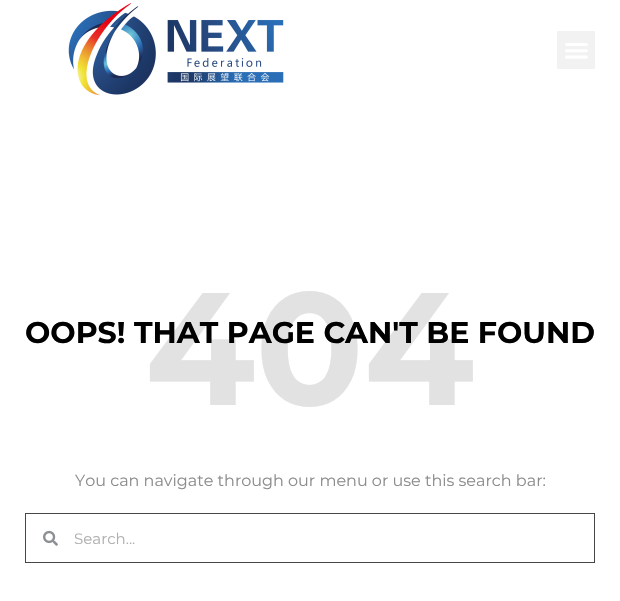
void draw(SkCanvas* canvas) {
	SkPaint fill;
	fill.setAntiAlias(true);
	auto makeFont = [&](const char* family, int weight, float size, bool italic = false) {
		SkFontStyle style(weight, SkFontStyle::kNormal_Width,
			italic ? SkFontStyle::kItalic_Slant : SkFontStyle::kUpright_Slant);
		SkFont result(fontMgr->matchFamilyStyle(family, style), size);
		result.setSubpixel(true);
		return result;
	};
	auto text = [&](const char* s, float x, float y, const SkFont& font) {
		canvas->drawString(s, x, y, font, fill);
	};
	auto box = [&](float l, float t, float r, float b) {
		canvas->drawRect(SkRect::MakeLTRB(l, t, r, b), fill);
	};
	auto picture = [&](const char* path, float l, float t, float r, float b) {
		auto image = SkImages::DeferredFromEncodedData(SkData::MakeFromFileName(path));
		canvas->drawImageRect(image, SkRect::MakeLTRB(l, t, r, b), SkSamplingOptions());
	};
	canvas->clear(0xFFFFFFFF);
	picture("image0.png", 68, 3, 284, 96);
	fill.setColor(0xFFF2F2F2);
	box(557, 31, 595, 69);
	picture("image1.png", 565, 43, 588, 59);
	fill.setStyle(SkPaint::kStroke_Style);
	fill.setStrokeWidth(1);
	fill.setColor(0xFF474747);
	canvas->drawRect(SkRect::MakeLTRB(25.5f, 513.5f, 594.5f, 562.5f), fill);
	picture("image2.png", 43, 530, 58, 546);
	auto font1 = makeFont("Montserrat", 700, 160);
	fill.setStyle(SkPaint::kFill_Style);
	fill.setColor(0xFFE2E2E2);
	text("404", 145, 405, font1);
	auto font2 = makeFont("Montserrat", 700, 30);
	fill.setColor(0xFF000000);
	text("OOPS! THAT PAGE CAN'T BE FOUND", 25, 343, font2);
	auto font3 = makeFont("Montserrat", 400, 16);
	fill.setColor(0xFF8C8C8C);
	text("You can navigate through our menu or use this search bar:", 75, 486, font3);
	auto font4 = makeFont("Montserrat", 400, 15);
	fill.setColor(0xFFAFAFAF);
	text("Search...", 74, 544, font4);
}
